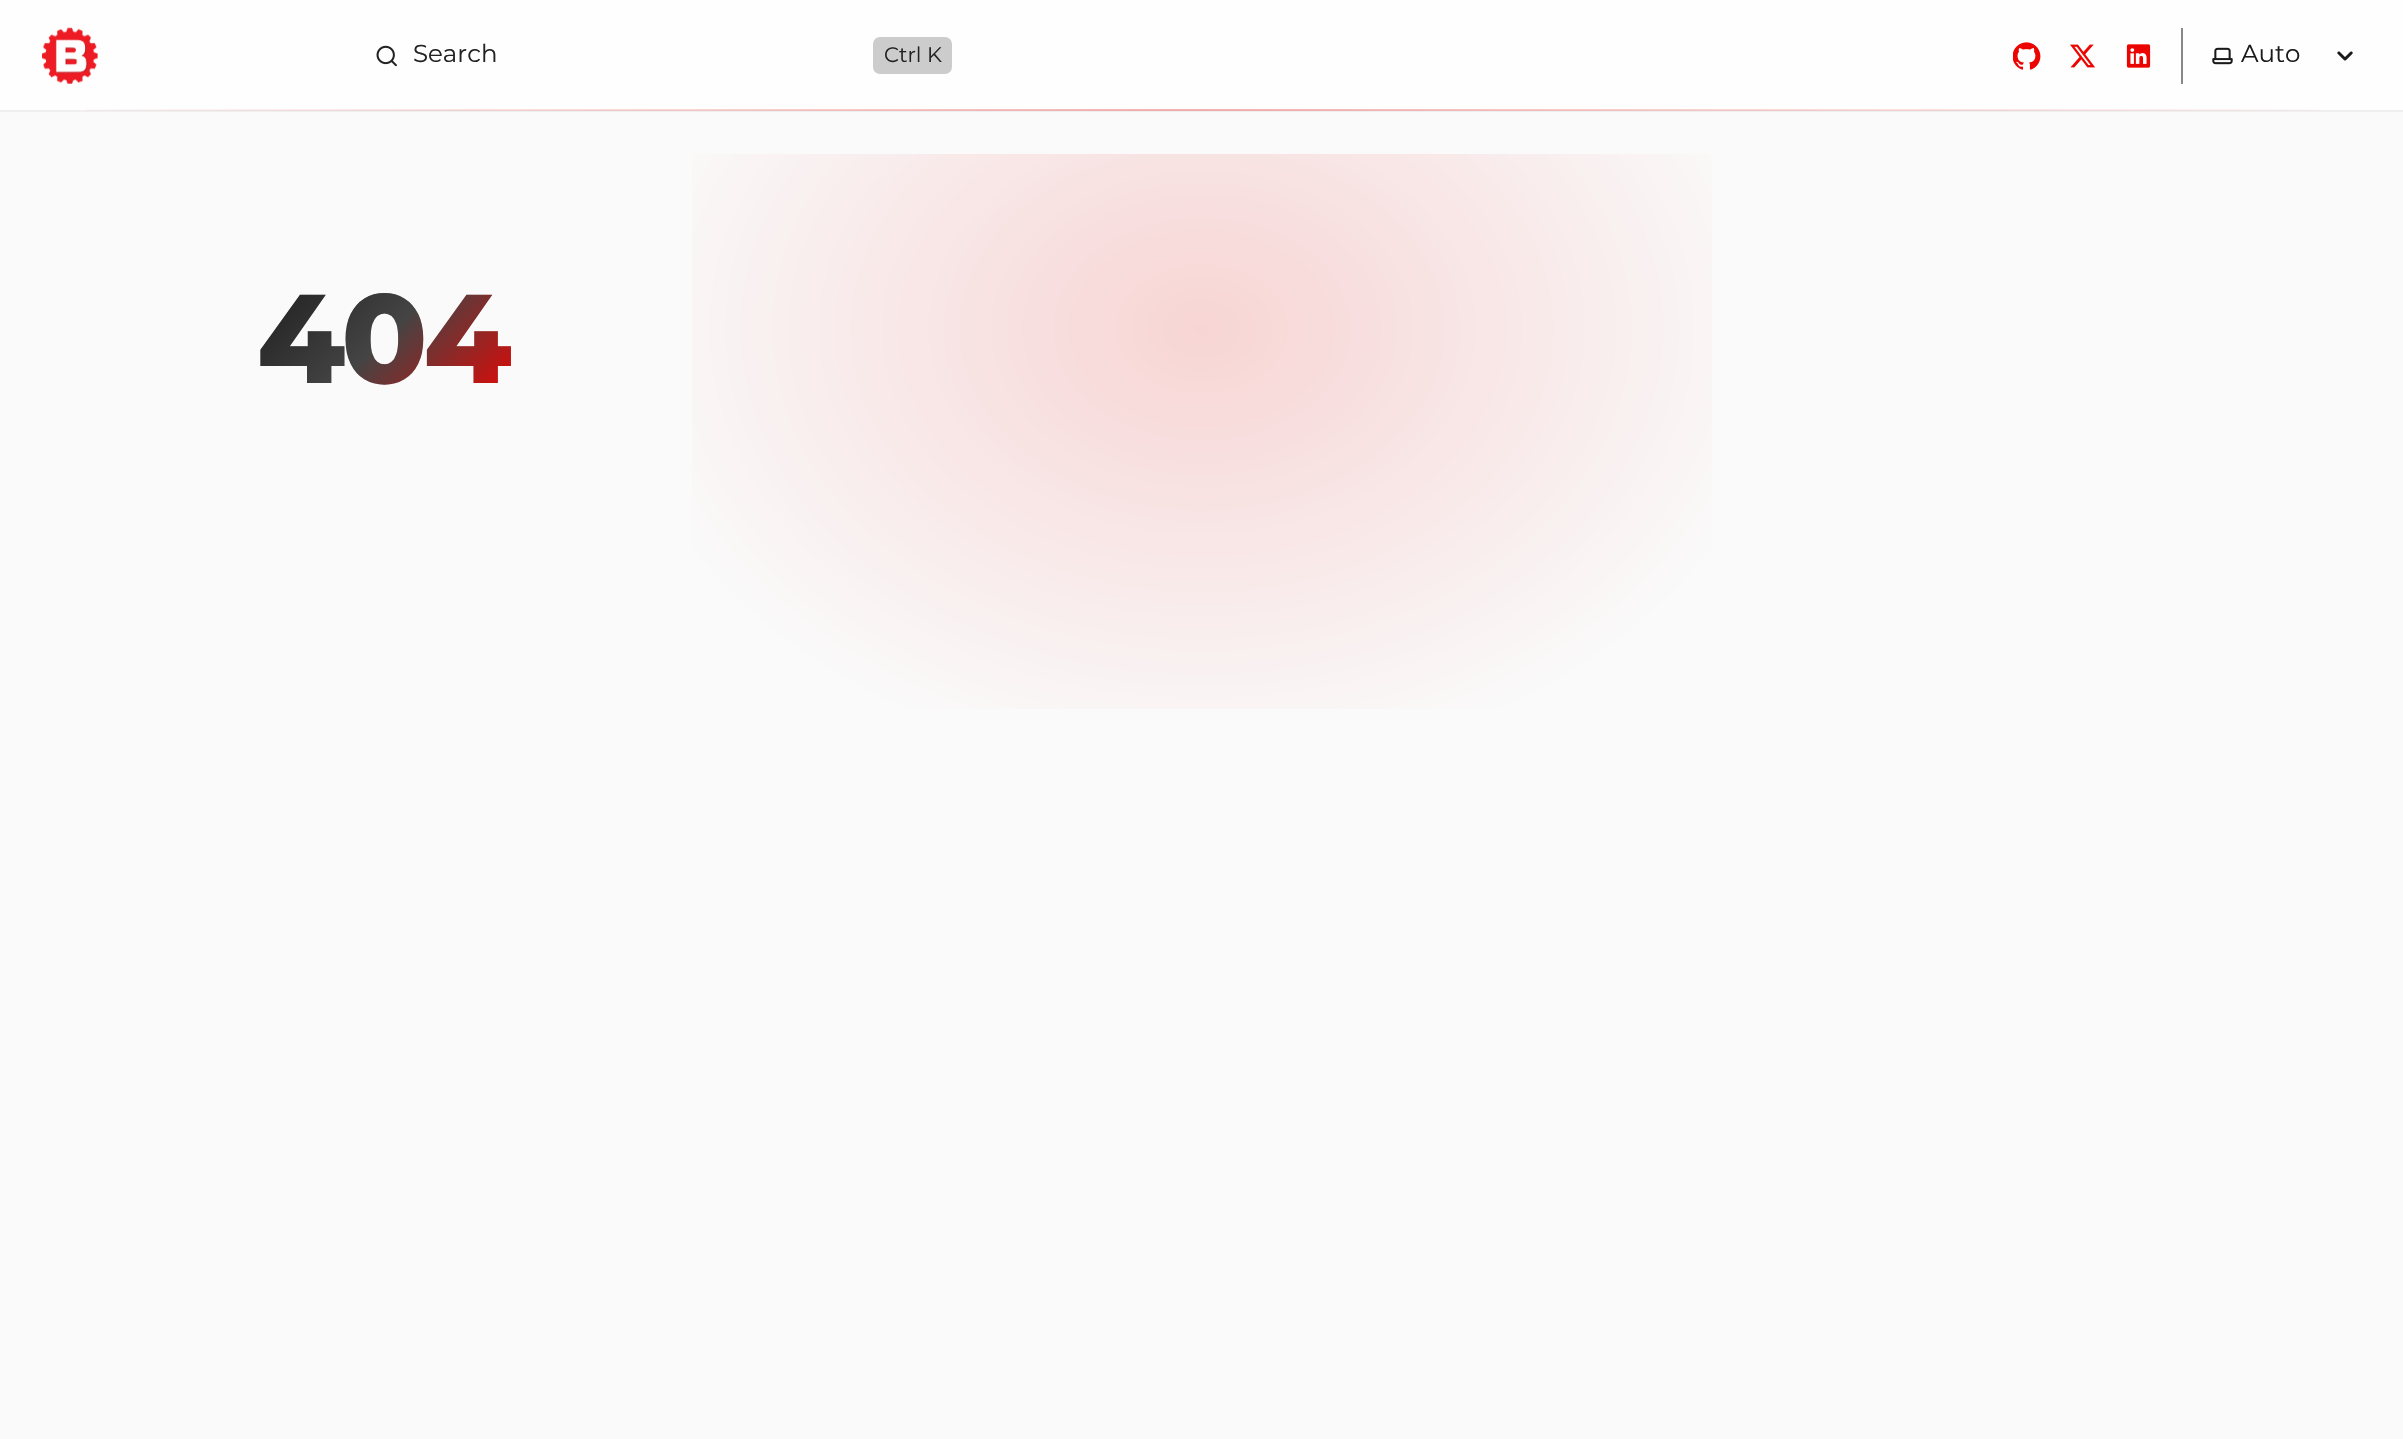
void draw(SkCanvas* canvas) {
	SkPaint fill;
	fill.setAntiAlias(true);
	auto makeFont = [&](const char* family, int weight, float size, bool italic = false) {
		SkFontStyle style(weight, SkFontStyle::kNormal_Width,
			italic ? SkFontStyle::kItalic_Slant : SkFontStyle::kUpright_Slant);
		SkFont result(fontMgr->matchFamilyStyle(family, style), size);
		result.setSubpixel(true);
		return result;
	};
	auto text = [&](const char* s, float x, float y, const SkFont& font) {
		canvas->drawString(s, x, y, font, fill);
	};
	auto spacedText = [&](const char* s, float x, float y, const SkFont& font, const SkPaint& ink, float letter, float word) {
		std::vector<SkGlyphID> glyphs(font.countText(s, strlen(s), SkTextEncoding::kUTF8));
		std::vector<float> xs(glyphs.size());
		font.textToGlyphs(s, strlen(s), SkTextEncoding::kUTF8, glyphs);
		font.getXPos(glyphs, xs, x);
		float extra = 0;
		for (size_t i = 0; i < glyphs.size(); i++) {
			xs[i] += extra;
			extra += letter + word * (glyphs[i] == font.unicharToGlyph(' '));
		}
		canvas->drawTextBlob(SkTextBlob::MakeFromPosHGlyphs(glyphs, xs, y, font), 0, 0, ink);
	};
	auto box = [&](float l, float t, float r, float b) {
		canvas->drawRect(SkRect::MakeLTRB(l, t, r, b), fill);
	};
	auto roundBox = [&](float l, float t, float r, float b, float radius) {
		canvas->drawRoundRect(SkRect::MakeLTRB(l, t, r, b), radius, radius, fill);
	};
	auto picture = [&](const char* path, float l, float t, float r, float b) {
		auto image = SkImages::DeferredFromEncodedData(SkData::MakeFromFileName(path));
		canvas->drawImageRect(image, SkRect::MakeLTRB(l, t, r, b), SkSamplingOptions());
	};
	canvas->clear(0xFFFAFAFA);
	fill.setColor(0xFFFEFEFE);
	box(0, 0, 2403, 110);
	fill.setColor(0xFFEFEFEF);
	box(0, 110, 2403, 112);
	picture("image0.png", 42, 27, 98, 84);
	picture("image1.png", 376, 45, 397, 67);
	fill.setColor(0xFFCCCCCC);
	roundBox(873, 37, 952, 74, 7);
	picture("image2.png", 2013, 42, 2041, 70);
	picture("image3.png", 2070, 44, 2095, 68);
	picture("image4.png", 2126, 44, 2151, 68);
	fill.setColor(0xFF888888);
	box(2181, 28, 2183, 84);
	picture("image5.png", 2212, 47, 2233, 65);
	picture("image6.png", 2337, 51, 2353, 61);
	{
		const SkColor colors[] = {0x00EC0401, 0x4DEC0401, 0x00EC0401};
		const float stops[] = {0, 0.5f, 1};
		const SkPoint ends[] = {{0, 109}, {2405, 109}};
		fill.setShader(SkGradientShader::MakeLinear(ends, colors, stops, 3, SkTileMode::kClamp));
		fill.setAlpha(255);
	}
	box(86, 109, 2319, 111);
	{
		const SkColor colors[] = {0x26EC0401, 0x00EC0401};
		const float stops[] = {0, 0.6f};
		SkMatrix m = SkMatrix::Translate(1202, 329).preScale(990, 742);
		fill.setShader(SkGradientShader::MakeRadial({0, 0}, 1, colors, stops, 2, SkTileMode::kClamp, 0, &m));
		fill.setAlpha(255);
	}
	box(692, 154, 1712, 709);
	auto font1 = makeFont("Montserrat", 400, 24.5f);
	fill.setShader(nullptr);
	fill.setColor(0xFF222222);
	text("Search", 413, 62, font1);
	auto font2 = makeFont("Montserrat", 400, 21);
	text("Ctrl K", 884, 62, font2);
	fill.setColor(0xFF1A1A1A);
	text("Auto", 2241, 62, font1);
	auto font3 = makeFont("Montserrat", 800, 126);
	{
		const SkColor colors[] = {0xFF1A1A1A, 0xFF444444, 0xFFEC0401};
		const float stops[] = {0, 0.5f, 1};
		const SkPoint ends[] = {{284, 239}, {482, 438}};
		fill.setShader(SkGradientShader::MakeLinear(ends, colors, stops, 3, SkTileMode::kClamp));
		fill.setAlpha(255);
	}
	spacedText("404", 257, 383, font3, fill, -4, 0);
}
